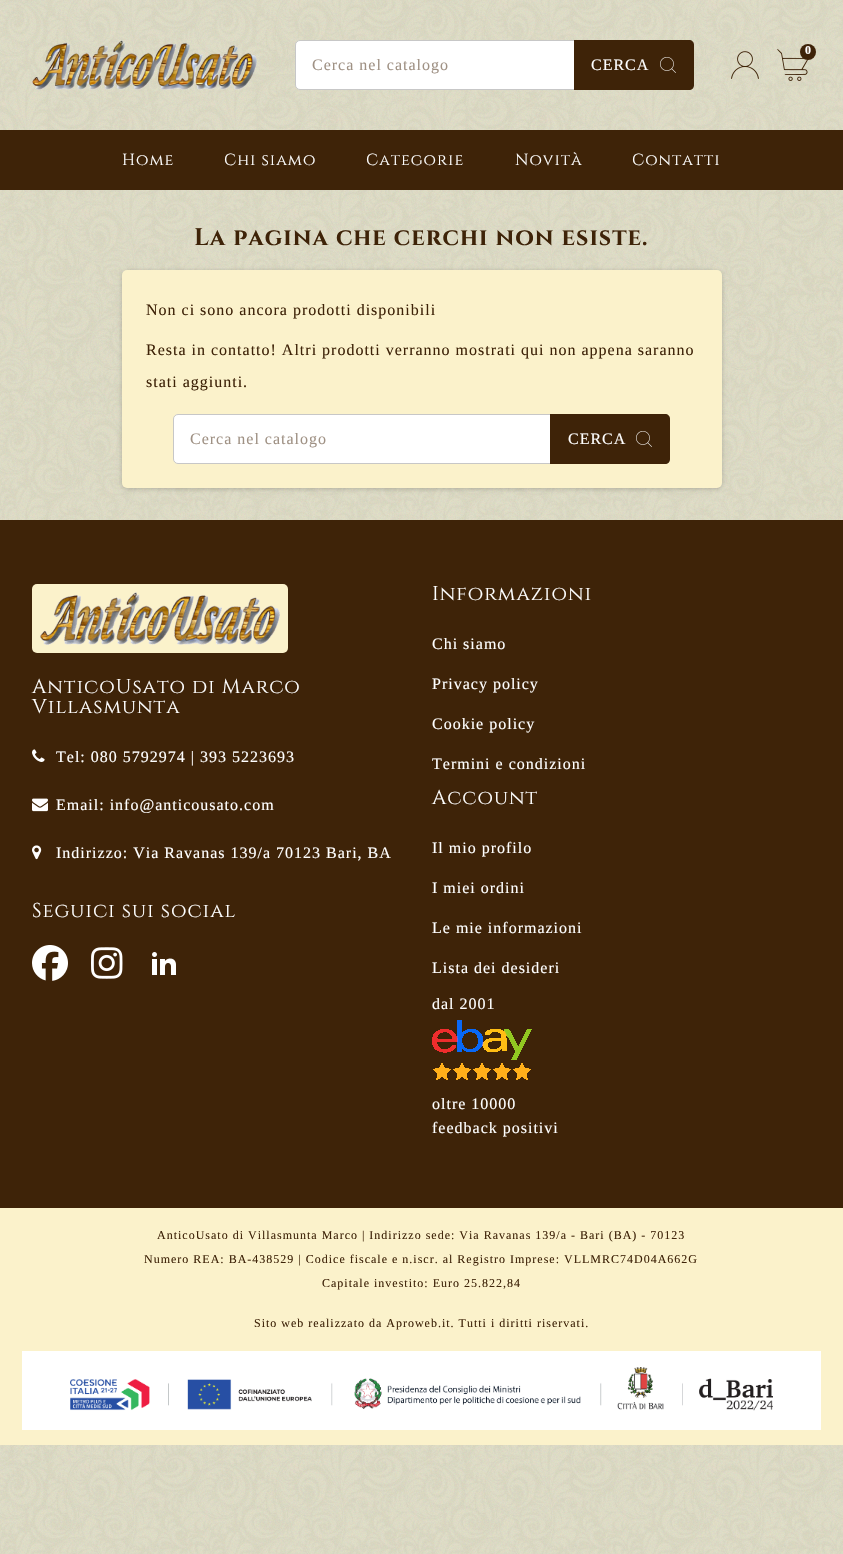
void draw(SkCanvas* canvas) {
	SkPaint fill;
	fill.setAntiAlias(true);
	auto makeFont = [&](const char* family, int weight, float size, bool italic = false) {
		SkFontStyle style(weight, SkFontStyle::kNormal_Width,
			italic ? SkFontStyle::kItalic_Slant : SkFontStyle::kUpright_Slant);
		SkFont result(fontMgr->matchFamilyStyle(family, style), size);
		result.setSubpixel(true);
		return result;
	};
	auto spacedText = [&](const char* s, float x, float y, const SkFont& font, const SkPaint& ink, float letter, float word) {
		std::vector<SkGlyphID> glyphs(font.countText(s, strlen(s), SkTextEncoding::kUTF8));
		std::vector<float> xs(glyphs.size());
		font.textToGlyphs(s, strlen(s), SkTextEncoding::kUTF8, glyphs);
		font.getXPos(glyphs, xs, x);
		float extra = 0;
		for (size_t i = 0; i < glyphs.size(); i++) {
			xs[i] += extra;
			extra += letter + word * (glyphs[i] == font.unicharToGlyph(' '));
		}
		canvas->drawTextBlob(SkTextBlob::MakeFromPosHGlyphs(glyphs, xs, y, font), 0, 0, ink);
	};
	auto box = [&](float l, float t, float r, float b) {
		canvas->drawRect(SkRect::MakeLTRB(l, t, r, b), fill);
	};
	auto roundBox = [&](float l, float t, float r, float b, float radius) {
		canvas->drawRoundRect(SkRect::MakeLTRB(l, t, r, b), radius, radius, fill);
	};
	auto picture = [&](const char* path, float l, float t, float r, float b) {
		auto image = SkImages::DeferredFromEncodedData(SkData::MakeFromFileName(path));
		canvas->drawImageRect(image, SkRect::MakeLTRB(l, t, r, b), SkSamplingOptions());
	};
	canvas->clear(0xFFFFFFFF);
	picture("image0.png", 0, 0, 843, 1554);
	picture("image1.png", 32, 40, 257, 90);
	fill.setColor(0xFFFFFFFF);
	canvas->drawRoundRect(SkRect::MakeLTRB(295.5f, 40.5f, 693.5f, 89.5f), 4.5f, 4.5f, fill);
	fill.setStyle(SkPaint::kStroke_Style);
	fill.setStrokeWidth(1);
	fill.setColor(0xFFC7C7C7);
	canvas->drawRoundRect(SkRect::MakeLTRB(295.5f, 40.5f, 693.5f, 89.5f), 4.5f, 4.5f, fill);
	fill.setStyle(SkPaint::kFill_Style);
	fill.setColor(0xFF3E2308);
	canvas->drawPath(SkPathBuilder().moveTo(574, 40).lineTo(689, 40).cubicTo(692, 40, 694, 42, 694, 45).lineTo(694, 85).cubicTo(694, 88, 692, 90, 689, 90).lineTo(574, 90).close().detach(), fill);
	picture("image2.png", 660, 57, 676, 73);
	picture("image3.png", 731, 51, 759, 79);
	picture("image4.png", 777, 49, 809, 81);
	canvas->drawCircle(808, 52, 8, fill);
	box(0, 130, 843, 190);
	fill.setColor(0x33000000);
	fill.setMaskFilter(SkMaskFilter::MakeBlur(kNormal_SkBlurStyle, 2.5f));
	canvas->drawRoundRect(SkRect::MakeLTRB(122, 271, 722, 489), 5, 5, fill);
	fill.setMaskFilter(nullptr);
	fill.setColor(0xFFFBF2CB);
	roundBox(122, 270, 722, 488, 5);
	fill.setColor(0xFFFFFFFF);
	canvas->drawRoundRect(SkRect::MakeLTRB(173.5f, 414.5f, 669.5f, 463.5f), 4.5f, 4.5f, fill);
	fill.setStyle(SkPaint::kStroke_Style);
	fill.setColor(0xFFC7C7C7);
	canvas->drawRoundRect(SkRect::MakeLTRB(173.5f, 414.5f, 669.5f, 463.5f), 4.5f, 4.5f, fill);
	fill.setStyle(SkPaint::kFill_Style);
	fill.setColor(0xFF3E2308);
	canvas->drawPath(SkPathBuilder().moveTo(550, 414).lineTo(665, 414).cubicTo(668, 414, 670, 416, 670, 419).lineTo(670, 459).cubicTo(670, 462, 668, 464, 665, 464).lineTo(550, 464).close().detach(), fill);
	picture("image2.png", 636, 431, 652, 447);
	box(0, 520, 843, 1208);
	fill.setColor(0xFFFBF2CB);
	roundBox(32, 584, 288, 653, 5);
	picture("image5.png", 40, 592, 280, 645);
	picture("image6.png", 32, 749, 45, 762);
	picture("image7.png", 32, 798, 48, 812);
	picture("image8.png", 32, 845, 42, 860);
	picture("image9.png", 32, 945, 68, 981);
	picture("image10.png", 91, 947, 123, 979);
	picture("image11.png", 152, 952, 176, 975);
	picture("image12.png", 432, 1020, 532, 1080);
	box(0, 1208, 843, 1445);
	fill.setColor(0xFFFFFFFF);
	box(22, 1351, 821, 1430);
	picture("image13.png", 70, 1367, 773, 1411);
	auto font1 = makeFont("Liberation Serif", 400, 16);
	fill.setColor(0xFF9F9184);
	spacedText("Cerca nel catalogo", 312, 70, font1, fill, 1, 0);
	fill.setColor(0xFFFFFFFF);
	spacedText("CERCA", 591, 70, font1, fill, 1, 0);
	auto font2 = makeFont("Liberation Serif", 700, 12);
	spacedText("0", 805, 54, font2, fill, 1, 0);
	auto font3 = makeFont("Cinzel", 400, 16);
	spacedText("Home", 122, 165, font3, fill, 1, 0);
	spacedText("Chi siamo", 224, 165, font3, fill, 1, 0);
	spacedText("Categorie", 366, 165, font3, fill, 1, 0);
	spacedText("Novità", 515, 165, font3, fill, 1, 0);
	spacedText("Contatti", 632, 165, font3, fill, 1, 0);
	auto font4 = makeFont("Cinzel", 700, 24);
	fill.setColor(0xFF3E2308);
	spacedText("La pagina che cerchi non esiste.", 194, 245, font4, fill, 1, 0);
	spacedText("Non ci sono ancora prodotti disponibili", 146, 315, font1, fill, 1, 0);
	spacedText("Resta in contatto! Altri prodotti verranno mostrati qui non appena saranno", 146, 355, font1, fill, 1, 0);
	spacedText("stati aggiunti.", 146, 387, font1, fill, 1, 0);
	fill.setColor(0xFF9F9184);
	spacedText("Cerca nel catalogo", 190, 444, font1, fill, 1, 0);
	fill.setColor(0xFFFFFFFF);
	spacedText("CERCA", 568, 444, font1, fill, 1, 0);
	auto font5 = makeFont("Cinzel", 400, 20);
	spacedText("AnticoUsato di Marco", 32, 693, font5, fill, 1, 0);
	spacedText("Villasmunta", 32, 713, font5, fill, 1, 0);
	spacedText("Tel: 080 5792974 | 393 5223693", 56, 762, font1, fill, 1, 0);
	spacedText("Email: info@anticousato.com", 56, 810, font1, fill, 1, 0);
	spacedText("Indirizzo: Via Ravanas 139/a 70123 Bari, BA", 56, 858, font1, fill, 1, 0);
	spacedText("Seguici sui social", 32, 917, font5, fill, 1, 0);
	spacedText("Informazioni", 432, 600, font5, fill, 1, 0);
	spacedText("Chi siamo", 432, 649, font1, fill, 1, 0);
	spacedText("Privacy policy", 432, 689, font1, fill, 1, 0);
	spacedText("Cookie policy", 432, 729, font1, fill, 1, 0);
	spacedText("Termini e condizioni", 432, 769, font1, fill, 1, 0);
	spacedText("Account", 432, 804, font5, fill, 1, 0);
	spacedText("Il mio profilo", 432, 853, font1, fill, 1, 0);
	spacedText("I miei ordini", 432, 893, font1, fill, 1, 0);
	spacedText("Le mie informazioni", 432, 933, font1, fill, 1, 0);
	spacedText("Lista dei desideri", 432, 973, font1, fill, 1, 0);
	spacedText("dal 2001", 432, 1009, font1, fill, 1, 0);
	spacedText("oltre 10000", 432, 1109, font1, fill, 1, 0);
	spacedText("feedback positivi", 432, 1133, font1, fill, 1, 0);
	auto font6 = makeFont("Liberation Serif", 400, 12);
	fill.setColor(0xFF3E2308);
	spacedText("AnticoUsato di Villasmunta Marco | Indirizzo sede: Via Ravanas 139/a - Bari (BA) - 70123", 157, 1239, font6, fill, 1, 0);
	spacedText("Numero REA: BA-438529 | Codice fiscale e n.iscr. al Registro Imprese: VLLMRC74D04A662G", 144, 1263, font6, fill, 1, 0);
	spacedText("Capitale investito: Euro 25.822,84", 322, 1287, font6, fill, 1, 0);
	spacedText("Sito web realizzato da Aproweb.it. Tutti i diritti riservati.", 254, 1327, font6, fill, 1, 0);
}
